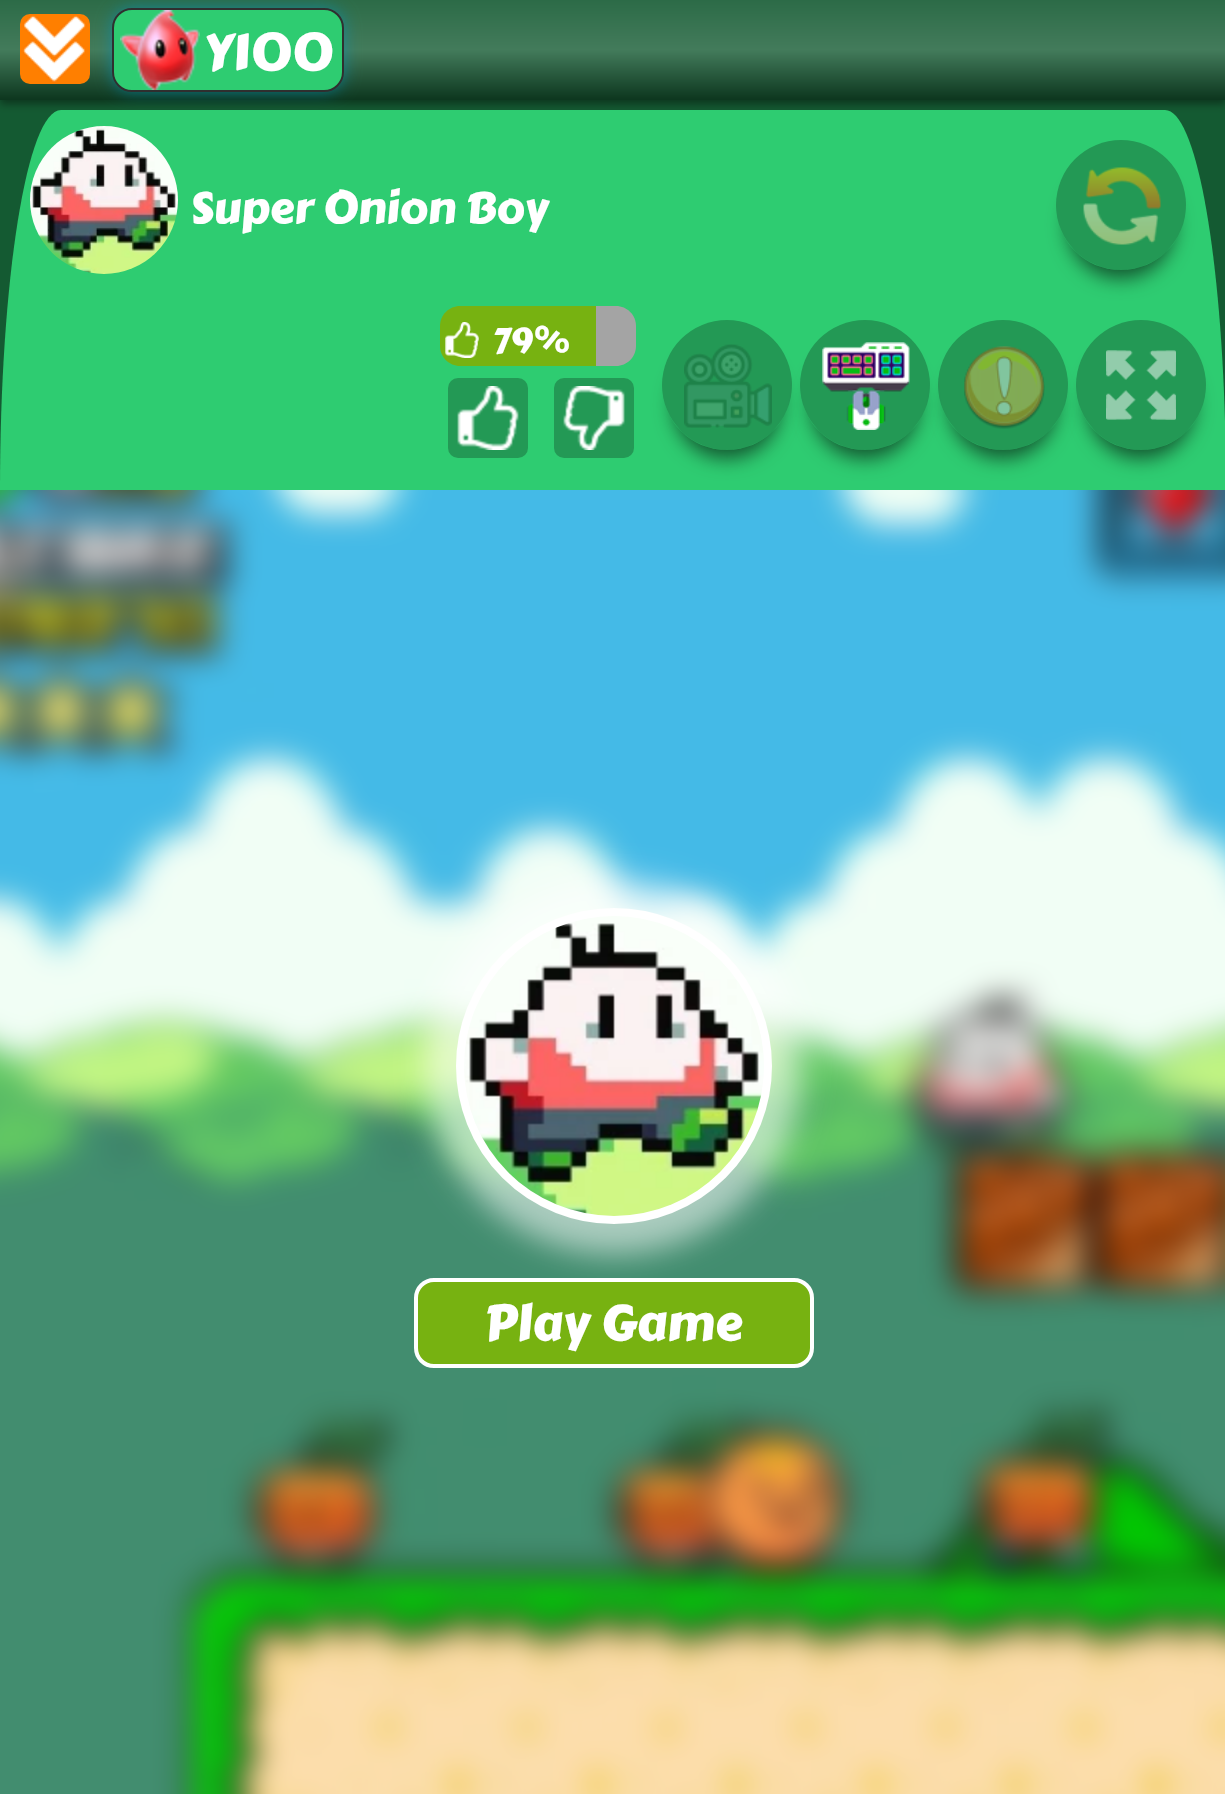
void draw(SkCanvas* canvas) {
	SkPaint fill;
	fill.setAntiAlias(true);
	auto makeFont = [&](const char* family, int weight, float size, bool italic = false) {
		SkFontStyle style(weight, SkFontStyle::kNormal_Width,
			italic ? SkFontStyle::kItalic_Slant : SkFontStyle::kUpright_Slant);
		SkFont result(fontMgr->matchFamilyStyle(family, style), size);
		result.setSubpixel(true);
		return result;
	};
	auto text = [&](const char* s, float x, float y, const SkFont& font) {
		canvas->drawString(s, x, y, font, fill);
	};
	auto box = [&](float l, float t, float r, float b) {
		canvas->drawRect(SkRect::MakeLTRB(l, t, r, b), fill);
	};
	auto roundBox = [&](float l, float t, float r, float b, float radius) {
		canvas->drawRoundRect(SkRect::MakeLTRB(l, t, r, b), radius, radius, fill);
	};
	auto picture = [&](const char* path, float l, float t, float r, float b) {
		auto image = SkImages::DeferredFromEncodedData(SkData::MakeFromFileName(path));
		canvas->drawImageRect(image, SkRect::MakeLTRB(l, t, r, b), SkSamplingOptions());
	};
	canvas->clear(0xFF145A32);
	fill.setColor(0x66000000);
	fill.setMaskFilter(SkMaskFilter::MakeBlur(kNormal_SkBlurStyle, 4));
	canvas->drawRect(SkRect::MakeLTRB(0, 4, 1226, 104), fill);
	fill.setMaskFilter(nullptr);
	{
		const SkColor colors[] = {0xFF2C6B47, 0xFF437B5B, 0xFF0C361E};
		const float stops[] = {0, 0.5f, 1};
		const SkPoint ends[] = {{613, 0}, {613, 100}};
		fill.setShader(SkGradientShader::MakeLinear(ends, colors, stops, 3, SkTileMode::kClamp));
		fill.setAlpha(255);
	}
	box(0, 0, 1225, 100);
	picture("image0.png", 20, 14, 90, 84);
	fill.setShader(nullptr);
	fill.setColor(0x990092BF);
	fill.setMaskFilter(SkMaskFilter::MakeBlur(kNormal_SkBlurStyle, 8));
	canvas->drawRoundRect(SkRect::MakeLTRB(112, 8, 344, 92), 20, 20, fill);
	fill.setMaskFilter(nullptr);
	fill.setColor(0xFF2ECC71);
	canvas->drawRoundRect(SkRect::MakeLTRB(113, 9, 343, 91), 19, 19, fill);
	fill.setStyle(SkPaint::kStroke_Style);
	fill.setStrokeWidth(2);
	fill.setColor(0xFF2F2F2F);
	canvas->drawRoundRect(SkRect::MakeLTRB(113, 9, 343, 91), 19, 19, fill);
	picture("image1.png", 120, 10, 200, 90);
	fill.setStyle(SkPaint::kFill_Style);
	fill.setColor(0xFF2ECC71);
	canvas->drawPath(SkPathBuilder().moveTo(61, 110).lineTo(1165, 110).cubicTo(1199, 110, 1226, 280, 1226, 490).lineTo(0, 490).cubicTo(0, 280, 27, 110, 61, 110).close().detach(), fill);
	picture("image2.png", 30, 126, 178, 274);
	canvas->save();
	canvas->clipPath(SkPathBuilder(SkPathFillType::kEvenOdd).moveTo(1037, 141).lineTo(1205, 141).lineTo(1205, 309).lineTo(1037, 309).close().moveTo(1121, 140).cubicTo(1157, 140, 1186, 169, 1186, 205).cubicTo(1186, 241, 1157, 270, 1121, 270).cubicTo(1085, 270, 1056, 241, 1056, 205).cubicTo(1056, 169, 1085, 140, 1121, 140).close().detach(), true);
	fill.setColor(0x99000000);
	fill.setMaskFilter(SkMaskFilter::MakeBlur(kNormal_SkBlurStyle, 10));
	canvas->drawRoundRect(SkRect::MakeLTRB(1068, 172, 1174, 278), 53, 53, fill);
	fill.setMaskFilter(nullptr);
	canvas->restore();
	fill.setColor(0x40000000);
	canvas->drawCircle(1121, 205, 65, fill);
	picture("image3.png", 1083, 167, 1161, 245);
	fill.setColor(0xFF77B211);
	canvas->drawPath(SkPathBuilder().moveTo(460, 306).lineTo(596, 306).lineTo(596, 366).lineTo(460, 366).cubicTo(449, 366, 440, 357, 440, 346).lineTo(440, 326).cubicTo(440, 315, 449, 306, 460, 306).close().detach(), fill);
	picture("image4.png", 445, 322, 479, 358);
	fill.setColor(0xFFA4A4A4);
	canvas->drawPath(SkPathBuilder().moveTo(596, 306).lineTo(616, 306).cubicTo(627, 306, 636, 315, 636, 326).lineTo(636, 346).cubicTo(636, 357, 627, 366, 616, 366).lineTo(596, 366).close().detach(), fill);
	fill.setColor(0xFF239955);
	roundBox(448, 378, 528, 458, 10);
	picture("image5.png", 457, 386, 519, 450);
	roundBox(554, 378, 634, 458, 10);
	picture("image6.png", 563, 386, 625, 450);
	canvas->save();
	canvas->clipPath(SkPathBuilder(SkPathFillType::kEvenOdd).moveTo(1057, 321).lineTo(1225, 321).lineTo(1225, 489).lineTo(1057, 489).close().moveTo(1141, 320).cubicTo(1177, 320, 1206, 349, 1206, 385).cubicTo(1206, 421, 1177, 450, 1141, 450).cubicTo(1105, 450, 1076, 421, 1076, 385).cubicTo(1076, 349, 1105, 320, 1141, 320).close().detach(), true);
	fill.setColor(0x99000000);
	fill.setMaskFilter(SkMaskFilter::MakeBlur(kNormal_SkBlurStyle, 10));
	canvas->drawRoundRect(SkRect::MakeLTRB(1088, 352, 1194, 458), 53, 53, fill);
	fill.setMaskFilter(nullptr);
	canvas->restore();
	fill.setColor(0x40000000);
	canvas->drawCircle(1141, 385, 65, fill);
	canvas->save();
	canvas->clipPath(SkPathBuilder(SkPathFillType::kEvenOdd).moveTo(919, 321).lineTo(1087, 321).lineTo(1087, 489).lineTo(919, 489).close().moveTo(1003, 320).cubicTo(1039, 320, 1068, 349, 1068, 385).cubicTo(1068, 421, 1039, 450, 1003, 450).cubicTo(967, 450, 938, 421, 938, 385).cubicTo(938, 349, 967, 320, 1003, 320).close().detach(), true);
	fill.setColor(0x99000000);
	fill.setMaskFilter(SkMaskFilter::MakeBlur(kNormal_SkBlurStyle, 10));
	canvas->drawRoundRect(SkRect::MakeLTRB(950, 352, 1056, 458), 53, 53, fill);
	fill.setMaskFilter(nullptr);
	canvas->restore();
	fill.setColor(0x40000000);
	canvas->drawCircle(1003, 385, 65, fill);
	canvas->save();
	canvas->clipPath(SkPathBuilder(SkPathFillType::kEvenOdd).moveTo(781, 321).lineTo(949, 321).lineTo(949, 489).lineTo(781, 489).close().moveTo(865, 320).cubicTo(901, 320, 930, 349, 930, 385).cubicTo(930, 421, 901, 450, 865, 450).cubicTo(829, 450, 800, 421, 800, 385).cubicTo(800, 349, 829, 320, 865, 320).close().detach(), true);
	fill.setColor(0x99000000);
	fill.setMaskFilter(SkMaskFilter::MakeBlur(kNormal_SkBlurStyle, 10));
	canvas->drawRoundRect(SkRect::MakeLTRB(812, 352, 918, 458), 53, 53, fill);
	fill.setMaskFilter(nullptr);
	canvas->restore();
	fill.setColor(0x40000000);
	canvas->drawCircle(865, 385, 65, fill);
	canvas->save();
	canvas->clipPath(SkPathBuilder(SkPathFillType::kEvenOdd).moveTo(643, 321).lineTo(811, 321).lineTo(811, 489).lineTo(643, 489).close().moveTo(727, 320).cubicTo(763, 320, 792, 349, 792, 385).cubicTo(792, 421, 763, 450, 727, 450).cubicTo(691, 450, 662, 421, 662, 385).cubicTo(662, 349, 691, 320, 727, 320).close().detach(), true);
	fill.setColor(0x99000000);
	fill.setMaskFilter(SkMaskFilter::MakeBlur(kNormal_SkBlurStyle, 10));
	canvas->drawRoundRect(SkRect::MakeLTRB(674, 352, 780, 458), 53, 53, fill);
	fill.setMaskFilter(nullptr);
	canvas->restore();
	fill.setColor(0x40000000);
	canvas->drawCircle(727, 385, 65, fill);
	picture("image7.png", 684, 344, 772, 428);
	picture("image8.png", 822, 342, 910, 430);
	picture("image9.png", 964, 346, 1045, 429);
	picture("image10.png", 1106, 350, 1176, 420);
	picture("image11.png", 0, 490, 1225, 1794);
	fill.setColor(0x8CFFFFFF);
	fill.setMaskFilter(SkMaskFilter::MakeBlur(kNormal_SkBlurStyle, 15));
	canvas->drawRoundRect(SkRect::MakeLTRB(426, 878, 802, 1254), 188, 188, fill);
	fill.setMaskFilter(nullptr);
	fill.setColor(0xFFFFFFFF);
	canvas->drawCircle(614, 1066, 154, fill);
	fill.setStyle(SkPaint::kStroke_Style);
	fill.setStrokeWidth(8);
	canvas->drawCircle(614, 1066, 154, fill);
	picture("image12.png", 464, 916, 764, 1216);
	fill.setStyle(SkPaint::kFill_Style);
	fill.setColor(0xFF77B211);
	canvas->drawRoundRect(SkRect::MakeLTRB(416, 1280, 812, 1366), 18, 18, fill);
	fill.setStyle(SkPaint::kStroke_Style);
	fill.setStrokeWidth(4);
	fill.setColor(0xFFFFFFFF);
	canvas->drawRoundRect(SkRect::MakeLTRB(416, 1280, 812, 1366), 18, 18, fill);
	auto font1 = makeFont("Carter One", 400, 52);
	fill.setStyle(SkPaint::kFill_Style);
	text("Y100", 204, 70, font1);
	auto font2 = makeFont("Carter One", 400, 44);
	text("Super Onion Boy", 190, 223, font2);
	auto font3 = makeFont("Carter One", 400, 34);
	text("79%", 493, 352, font3);
	auto font4 = makeFont("Carter One", 400, 50);
	text("Play Game", 484, 1340, font4);
}
